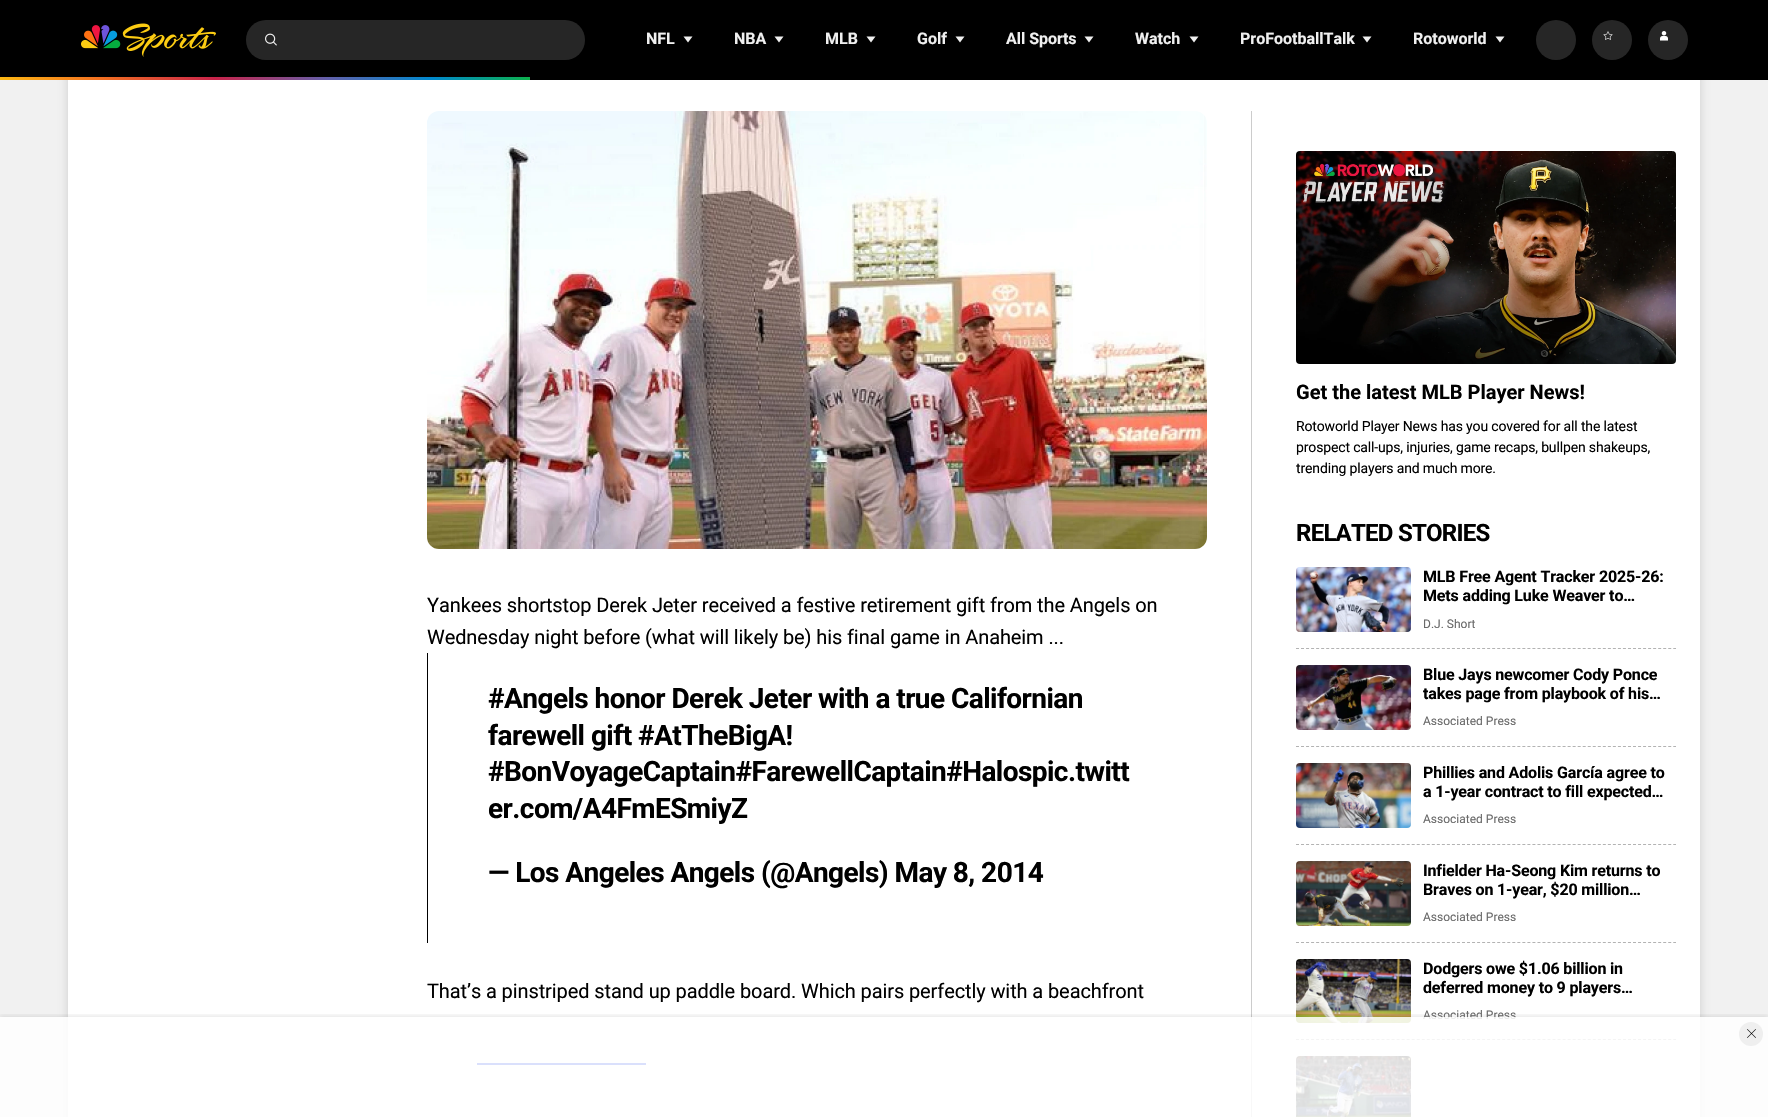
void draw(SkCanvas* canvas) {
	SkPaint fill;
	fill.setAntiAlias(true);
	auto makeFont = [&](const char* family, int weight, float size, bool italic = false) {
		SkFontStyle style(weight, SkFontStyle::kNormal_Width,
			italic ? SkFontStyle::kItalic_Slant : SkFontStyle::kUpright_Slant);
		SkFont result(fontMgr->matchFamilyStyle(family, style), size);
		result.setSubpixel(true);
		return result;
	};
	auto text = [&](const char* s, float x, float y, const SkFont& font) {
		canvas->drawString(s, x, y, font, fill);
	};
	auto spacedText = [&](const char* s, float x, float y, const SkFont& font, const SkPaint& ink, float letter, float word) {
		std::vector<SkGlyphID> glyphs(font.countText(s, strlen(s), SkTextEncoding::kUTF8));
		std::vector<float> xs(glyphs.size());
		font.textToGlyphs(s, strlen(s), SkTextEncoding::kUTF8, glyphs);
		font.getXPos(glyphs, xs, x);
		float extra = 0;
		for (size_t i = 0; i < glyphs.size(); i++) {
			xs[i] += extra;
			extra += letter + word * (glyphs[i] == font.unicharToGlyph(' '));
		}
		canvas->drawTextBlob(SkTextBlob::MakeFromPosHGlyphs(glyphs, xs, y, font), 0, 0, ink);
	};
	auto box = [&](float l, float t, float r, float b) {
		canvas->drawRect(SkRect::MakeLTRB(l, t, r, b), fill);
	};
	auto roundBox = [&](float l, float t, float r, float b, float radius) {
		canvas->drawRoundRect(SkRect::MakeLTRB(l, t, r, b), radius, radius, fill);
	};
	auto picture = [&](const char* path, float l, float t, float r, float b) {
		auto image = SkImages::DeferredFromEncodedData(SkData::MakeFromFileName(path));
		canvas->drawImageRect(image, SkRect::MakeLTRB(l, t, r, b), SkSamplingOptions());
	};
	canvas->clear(0xFFF1F1F1);
	fill.setColor(0x26000000);
	fill.setMaskFilter(SkMaskFilter::MakeBlur(kNormal_SkBlurStyle, 5));
	canvas->drawRoundRect(SkRect::MakeLTRB(68, -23, 1700, 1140), 8, 8, fill);
	fill.setMaskFilter(nullptr);
	fill.setColor(0xFF000000);
	box(0, 0, 1768, 80);
	picture("image0.png", 81, 23, 216, 57);
	fill.setColor(0xFF262626);
	roundBox(246, 20, 585, 60, 20);
	picture("image1.png", 265, 33, 277, 46);
	fill.setColor(0xFFF0F0F0);
	canvas->drawPath(SkPathBuilder().moveTo(688, 42.5f).lineTo(683.5f, 36.5f).lineTo(692.5f, 36.5f).close().detach(), fill);
	canvas->drawPath(SkPathBuilder().moveTo(779, 42.5f).lineTo(774.5f, 36.5f).lineTo(783.5f, 36.5f).close().detach(), fill);
	canvas->drawPath(SkPathBuilder().moveTo(871, 42.5f).lineTo(866.5f, 36.5f).lineTo(875.5f, 36.5f).close().detach(), fill);
	canvas->drawPath(SkPathBuilder().moveTo(960, 42.5f).lineTo(955.5f, 36.5f).lineTo(964.5f, 36.5f).close().detach(), fill);
	canvas->drawPath(SkPathBuilder().moveTo(1089, 42.5f).lineTo(1084.5f, 36.5f).lineTo(1093.5f, 36.5f).close().detach(), fill);
	canvas->drawPath(SkPathBuilder().moveTo(1194, 42.5f).lineTo(1189.5f, 36.5f).lineTo(1198.5f, 36.5f).close().detach(), fill);
	canvas->drawPath(SkPathBuilder().moveTo(1367, 42.5f).lineTo(1362.5f, 36.5f).lineTo(1371.5f, 36.5f).close().detach(), fill);
	canvas->drawPath(SkPathBuilder().moveTo(1500, 42.5f).lineTo(1495.5f, 36.5f).lineTo(1504.5f, 36.5f).close().detach(), fill);
	fill.setColor(0xFF262626);
	canvas->drawCircle(1556, 40, 20, fill);
	canvas->drawCircle(1612, 40, 20, fill);
	picture("image2.png", 1603, 31, 1613, 40);
	canvas->drawCircle(1668, 40, 20, fill);
	picture("image3.png", 1660, 31, 1668, 41);
	picture("image4.png", 0, 77, 530, 80);
	fill.setColor(0xFFFFFFFF);
	box(68, 80, 1700, 1117);
	picture("image5.png", 427, 111, 1207, 549);
	fill.setColor(0xFF000000);
	box(427, 653, 428, 943);
	fill.setColor(0xFF0329E7);
	box(477, 1063, 646, 1065);
	fill.setColor(0xFFCCCCCC);
	box(1251, 111, 1252, 1117);
	picture("image6.png", 1296, 151, 1676, 364);
	picture("image7.png", 1296, 567, 1411, 632);
	fill.setStyle(SkPaint::kStroke_Style);
	fill.setStrokeWidth(1);
	fill.setColor(0xFFB3B3B3);
	fill.setPathEffect(SkDashPathEffect::Make({{3, 2.03f}}, 0));
	canvas->drawPath(SkPathBuilder().moveTo(1296, 648.5f).lineTo(1676, 648.5f).detach(), fill);
	fill.setPathEffect(nullptr);
	picture("image8.png", 1296, 665, 1411, 730);
	fill.setPathEffect(SkDashPathEffect::Make({{3, 2.03f}}, 0));
	canvas->drawPath(SkPathBuilder().moveTo(1296, 746.5f).lineTo(1676, 746.5f).detach(), fill);
	fill.setPathEffect(nullptr);
	picture("image9.png", 1296, 763, 1411, 828);
	fill.setPathEffect(SkDashPathEffect::Make({{3, 2.03f}}, 0));
	canvas->drawPath(SkPathBuilder().moveTo(1296, 844.5f).lineTo(1676, 844.5f).detach(), fill);
	fill.setPathEffect(nullptr);
	picture("image10.png", 1296, 861, 1411, 926);
	fill.setPathEffect(SkDashPathEffect::Make({{3, 2.03f}}, 0));
	canvas->drawPath(SkPathBuilder().moveTo(1296, 942.5f).lineTo(1676, 942.5f).detach(), fill);
	fill.setPathEffect(nullptr);
	picture("image11.png", 1296, 959, 1411, 1023);
	fill.setPathEffect(SkDashPathEffect::Make({{3, 2.03f}}, 0));
	canvas->drawPath(SkPathBuilder().moveTo(1296, 1039.5f).lineTo(1676, 1039.5f).detach(), fill);
	fill.setPathEffect(nullptr);
	picture("image12.png", 1296, 1056, 1411, 1117);
	canvas->save();
	canvas->clipRect(SkRect::MakeLTRB(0, 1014, 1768, 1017));
	fill.setStyle(SkPaint::kFill_Style);
	fill.setColor(0x14000000);
	fill.setMaskFilter(SkMaskFilter::MakeBlur(kNormal_SkBlurStyle, 2));
	canvas->drawRect(SkRect::MakeLTRB(0, 1015, 1768, 1115), fill);
	fill.setMaskFilter(nullptr);
	canvas->restore();
	auto font1 = makeFont("Roboto", 700, 16);
	fill.setColor(0xFFF0F0F0);
	text("NFL", 646, 44, font1);
	text("NBA", 734, 44, font1);
	text("MLB", 825, 44, font1);
	text("Golf", 917, 44, font1);
	text("All Sports", 1006, 44, font1);
	text("Watch", 1135, 44, font1);
	text("ProFootballTalk", 1240, 44, font1);
	text("Rotoworld", 1413, 44, font1);
	auto font2 = makeFont("Roboto", 400, 20);
	fill.setColor(0xFF000000);
	spacedText("Yankees shortstop Derek Jeter received a festive retirement gift from the Angels on", 427, 612, font2, fill, -0.1f, 0);
	spacedText("Wednesday night before (what will likely be) his final game in Anaheim ...", 427, 644, font2, fill, -0.1f, 0);
	auto font3 = makeFont("Roboto", 700, 28);
	spacedText("#Angels honor Derek Jeter with a true Californian", 488, 708, font3, fill, -0.55f, 0);
	spacedText("farewell gift #AtTheBigA!", 488, 745, font3, fill, -0.55f, 0);
	spacedText("#BonVoyageCaptain#FarewellCaptain#Halospic.twitt", 488, 781, font3, fill, -0.55f, 0);
	spacedText("er.com/A4FmESmiyZ", 488, 818, font3, fill, -0.55f, 0);
	spacedText("— Los Angeles Angels (@Angels) May 8, 2014", 488, 882, font3, fill, -0.55f, 0);
	spacedText("That’s a pinstriped stand up paddle board. Which pairs perfectly with a beachfront", 427, 998, font2, fill, -0.1f, 0);
	auto font4 = makeFont("Roboto", 700, 20);
	text("Get the latest MLB Player News!", 1296, 399, font4);
	auto font5 = makeFont("Roboto", 400, 14);
	spacedText("Rotoworld Player News has you covered for all the latest", 1296, 431, font5, fill, -0.15f, 0);
	spacedText("prospect call-ups, injuries, game recaps, bullpen shakeups,", 1296, 452, font5, fill, -0.15f, 0);
	spacedText("trending players and much more.", 1296, 473, font5, fill, -0.15f, 0);
	auto font6 = makeFont("Roboto", 700, 24);
	spacedText("RELATED STORIES", 1296, 541, font6, fill, -0.75f, 0);
	spacedText("MLB Free Agent Tracker 2025-26:", 1423, 582, font1, fill, -0.15f, 0);
	spacedText("Mets adding Luke Weaver to…", 1423, 601, font1, fill, -0.15f, 0);
	auto font7 = makeFont("Roboto", 400, 12);
	fill.setColor(0xFF6A6A6A);
	text("D.J. Short", 1423, 628, font7);
	fill.setColor(0xFF000000);
	spacedText("Blue Jays newcomer Cody Ponce", 1423, 680, font1, fill, -0.15f, 0);
	spacedText("takes page from playbook of his…", 1423, 699, font1, fill, -0.15f, 0);
	fill.setColor(0xFF6A6A6A);
	text("Associated Press", 1423, 725, font7);
	fill.setColor(0xFF000000);
	spacedText("Phillies and Adolis García agree to", 1423, 778, font1, fill, -0.15f, 0);
	spacedText("a 1-year contract to fill expected…", 1423, 797, font1, fill, -0.15f, 0);
	fill.setColor(0xFF6A6A6A);
	text("Associated Press", 1423, 823, font7);
	fill.setColor(0xFF000000);
	spacedText("Infielder Ha-Seong Kim returns to", 1423, 876, font1, fill, -0.15f, 0);
	spacedText("Braves on 1-year, $20 million…", 1423, 895, font1, fill, -0.15f, 0);
	fill.setColor(0xFF6A6A6A);
	text("Associated Press", 1423, 921, font7);
	fill.setColor(0xFF000000);
	spacedText("Dodgers owe $1.06 billion in", 1423, 974, font1, fill, -0.15f, 0);
	spacedText("deferred money to 9 players…", 1423, 993, font1, fill, -0.15f, 0);
	fill.setColor(0xFF6A6A6A);
	text("Associated Press", 1423, 1019, font7);
	fill.setColor(0xD9FFFFFF);
	box(0, 1017, 1768, 1117);
	fill.setColor(0xFFEFEFEF);
	canvas->drawCircle(1751, 1034, 12, fill);
	picture("image13.png", 1747, 1029, 1756, 1038);
}
